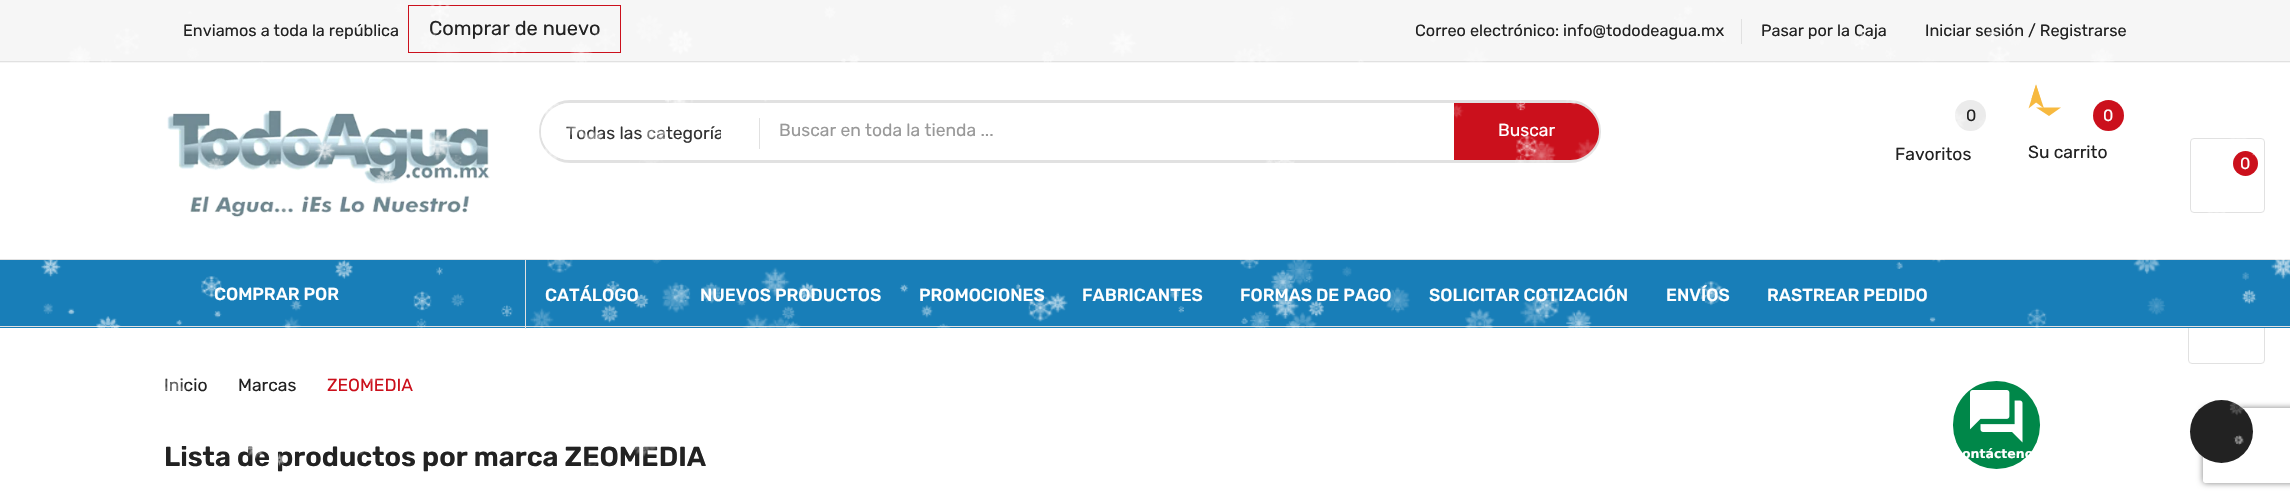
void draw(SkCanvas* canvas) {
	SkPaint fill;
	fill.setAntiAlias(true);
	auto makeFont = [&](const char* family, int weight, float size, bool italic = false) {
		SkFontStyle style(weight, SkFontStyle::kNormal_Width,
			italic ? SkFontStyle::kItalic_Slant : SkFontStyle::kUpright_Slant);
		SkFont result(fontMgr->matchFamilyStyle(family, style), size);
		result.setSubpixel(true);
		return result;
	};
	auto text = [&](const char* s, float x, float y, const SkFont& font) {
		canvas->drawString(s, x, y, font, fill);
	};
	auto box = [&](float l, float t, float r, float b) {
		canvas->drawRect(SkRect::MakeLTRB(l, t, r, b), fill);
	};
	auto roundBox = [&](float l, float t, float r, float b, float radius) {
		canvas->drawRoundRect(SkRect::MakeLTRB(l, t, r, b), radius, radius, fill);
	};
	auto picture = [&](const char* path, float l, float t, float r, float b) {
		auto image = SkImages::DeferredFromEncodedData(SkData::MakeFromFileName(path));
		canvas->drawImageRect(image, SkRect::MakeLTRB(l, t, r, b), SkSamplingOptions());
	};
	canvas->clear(0xFFFFFFFF);
	fill.setStyle(SkPaint::kStroke_Style);
	fill.setStrokeWidth(1);
	fill.setColor(0xFFE1E1E1);
	canvas->drawRoundRect(SkRect::MakeLTRB(2188.5f, 136.5f, 2264.5f, 363.5f), 3.5f, 3.5f, fill);
	fill.setStyle(SkPaint::kFill_Style);
	fill.setColor(0xFFFFFFFF);
	box(2188, 136, 2265, 259);
	fill.setColor(0xFFF6F6F6);
	box(0, 0, 2290, 63);
	fill.setColor(0xFFE1E1E1);
	box(0, 61, 2290, 62);
	fill.setStyle(SkPaint::kStroke_Style);
	fill.setColor(0xFFCB101C);
	canvas->drawRect(SkRect::MakeLTRB(408.5f, 5.5f, 620.5f, 52.5f), fill);
	fill.setStyle(SkPaint::kFill_Style);
	fill.setColor(0xFFE1E1E1);
	box(1741, 19, 1742, 44);
	picture("image1.png", 167, 110, 490, 218);
	fill.setStyle(SkPaint::kStroke_Style);
	fill.setStrokeWidth(3);
	canvas->drawRoundRect(SkRect::MakeLTRB(540.5f, 101.5f, 1599.5f, 161.5f), 30, 30, fill);
	fill.setStyle(SkPaint::kFill_Style);
	fill.setColor(0xFFFFFFFF);
	roundBox(541, 103, 1599, 160, 28.5f);
	canvas->save();
	canvas->clipPath(SkPathBuilder().moveTo(569.5f, 103).lineTo(1570.5f, 103).cubicTo(1586, 103, 1599, 116, 1599, 131.5f).cubicTo(1599, 147, 1586, 160, 1570.5f, 160).lineTo(569.5f, 160).cubicTo(554, 160, 541, 147, 541, 131.5f).cubicTo(541, 116, 554, 103, 569.5f, 103).close().detach(), true);
	box(541, 118, 759, 149);
	canvas->restore();
	fill.setColor(0xFFE1E1E1);
	box(759, 118, 760, 149);
	fill.setColor(0xFFCB101C);
	canvas->drawPath(SkPathBuilder().moveTo(1454, 103).lineTo(1570.5f, 103).cubicTo(1586, 103, 1599, 116, 1599, 131.5f).cubicTo(1599, 147, 1586, 160, 1570.5f, 160).lineTo(1454, 160).close().detach(), fill);
	fill.setColor(0xFFEBEBEB);
	canvas->drawCircle(1970.5f, 115.5f, 15.5f, fill);
	fill.setColor(0xFFCB101C);
	canvas->drawCircle(2108.5f, 115.5f, 15.5f, fill);
	fill.setStyle(SkPaint::kStroke_Style);
	fill.setStrokeWidth(1);
	fill.setColor(0xFFE1E1E1);
	canvas->drawRoundRect(SkRect::MakeLTRB(2190.5f, 138.5f, 2264.5f, 212.5f), 3.5f, 3.5f, fill);
	fill.setStyle(SkPaint::kFill_Style);
	fill.setColor(0xFFCB101C);
	canvas->drawCircle(2245.5f, 163.5f, 12.5f, fill);
	fill.setColor(0xFF187EB8);
	box(0, 260, 2290, 328);
	fill.setColor(0xFFE1E1E1);
	box(0, 259, 2290, 260);
	box(0, 326, 2290, 327);
	box(525, 260, 526, 329);
	canvas->save();
	canvas->clipPath(SkPathBuilder(SkPathFillType::kEvenOdd).moveTo(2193, 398).lineTo(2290, 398).lineTo(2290, 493).lineTo(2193, 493).close().moveTo(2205.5f, 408).lineTo(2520.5f, 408).cubicTo(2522, 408, 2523, 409, 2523, 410.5f).lineTo(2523, 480.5f).cubicTo(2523, 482, 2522, 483, 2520.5f, 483).lineTo(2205.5f, 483).cubicTo(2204, 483, 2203, 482, 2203, 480.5f).lineTo(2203, 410.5f).cubicTo(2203, 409, 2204, 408, 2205.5f, 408).close().detach(), true);
	fill.setColor(0xFF808080);
	fill.setMaskFilter(SkMaskFilter::MakeBlur(kNormal_SkBlurStyle, 3));
	canvas->drawRoundRect(SkRect::MakeLTRB(2203, 408, 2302, 483), 2.5f, 2.5f, fill);
	fill.setMaskFilter(nullptr);
	canvas->restore();
	fill.setColor(0xFF222222);
	canvas->drawCircle(2221.5f, 431.5f, 31.5f, fill);
	auto font1 = makeFont("Rubik", 400, 16.25f);
	text("Enviamos a toda la república", 183, 36, font1);
	auto font2 = makeFont("Rubik", 400, 20);
	text("Comprar de nuevo", 429, 35, font2);
	text("Correo electrónico: info@tododeagua.mx", 1415, 36, font1);
	text("Pasar por la Caja", 1761, 36, font1);
	text("Iniciar sesión / Registrarse", 1925, 36, font1);
	canvas->save();
	canvas->clipRect(SkRect::MakeLTRB(566, 120, 721, 146));
	auto font3 = makeFont("Rubik", 400, 17.5f);
	fill.setColor(0xFF333333);
	text("Todas las categoría", 566, 139, font3);
	canvas->restore();
	fill.setColor(0xFF999999);
	text("Buscar en toda la tienda ...", 779, 136, font3);
	fill.setColor(0xFFFFFFFF);
	text("Buscar", 1498, 136, font3);
	fill.setColor(0xFF222222);
	text("0", 1966, 121, font1);
	text("Favoritos", 1895, 160, font3);
	fill.setColor(0xFFFFFFFF);
	text("0", 2103, 121, font1);
	fill.setColor(0xFF222222);
	text("Su carrito", 2028, 158, font3);
	fill.setColor(0xFFFFFFFF);
	text("0", 2240, 169, font1);
	auto font4 = makeFont("Rubik", 500, 17.5f);
	text("COMPRAR POR", 214, 300, font4);
	text("CATÁLOGO", 545, 301, font4);
	text("NUEVOS PRODUCTOS", 700, 301, font4);
	text("PROMOCIONES", 919, 301, font4);
	text("FABRICANTES", 1082, 301, font4);
	text("FORMAS DE PAGO", 1240, 301, font4);
	text("SOLICITAR COTIZACIÓN", 1429, 301, font4);
	text("ENVÍOS", 1666, 301, font4);
	text("RASTREAR PEDIDO", 1767, 301, font4);
	fill.setColor(0xFF222222);
	text("Inicio", 164, 391, font3);
	text("Marcas", 238, 391, font3);
	fill.setColor(0xFFCB101C);
	text("ZEOMEDIA", 327, 391, font3);
	auto font5 = makeFont("Rubik", 600, 27.5f);
	fill.setColor(0xFF222222);
	text("Lista de productos por marca ZEOMEDIA", 164, 466, font5);
	picture("image0.png", 41, 1, 2290, 499);
	fill.setColor(0xFFF7B93F);
	canvas->drawPath(SkPathBuilder().moveTo(2036, 107.5f).lineTo(2061, 107.5f).lineTo(2049, 116).close().detach(), fill);
	canvas->drawPath(SkPathBuilder().moveTo(2036, 84.5f).lineTo(2044, 108.5f).lineTo(2031.5f, 99).close().detach(), fill);
	canvas->drawPath(SkPathBuilder().moveTo(2028.5f, 108.5f).lineTo(2036, 84.5f).lineTo(2040.5f, 99).close().detach(), fill);
	fill.setColor(0xFF008749);
	roundBox(1953, 381, 2040, 469, 43.5f);
	picture("image2.png", 1970, 390, 2023, 443);
	auto font6 = makeFont("DejaVu Sans", 700, 12.5f);
	fill.setColor(0xFFFFFFFF);
	text("ontácteno", 1962, 458, font6);
}
